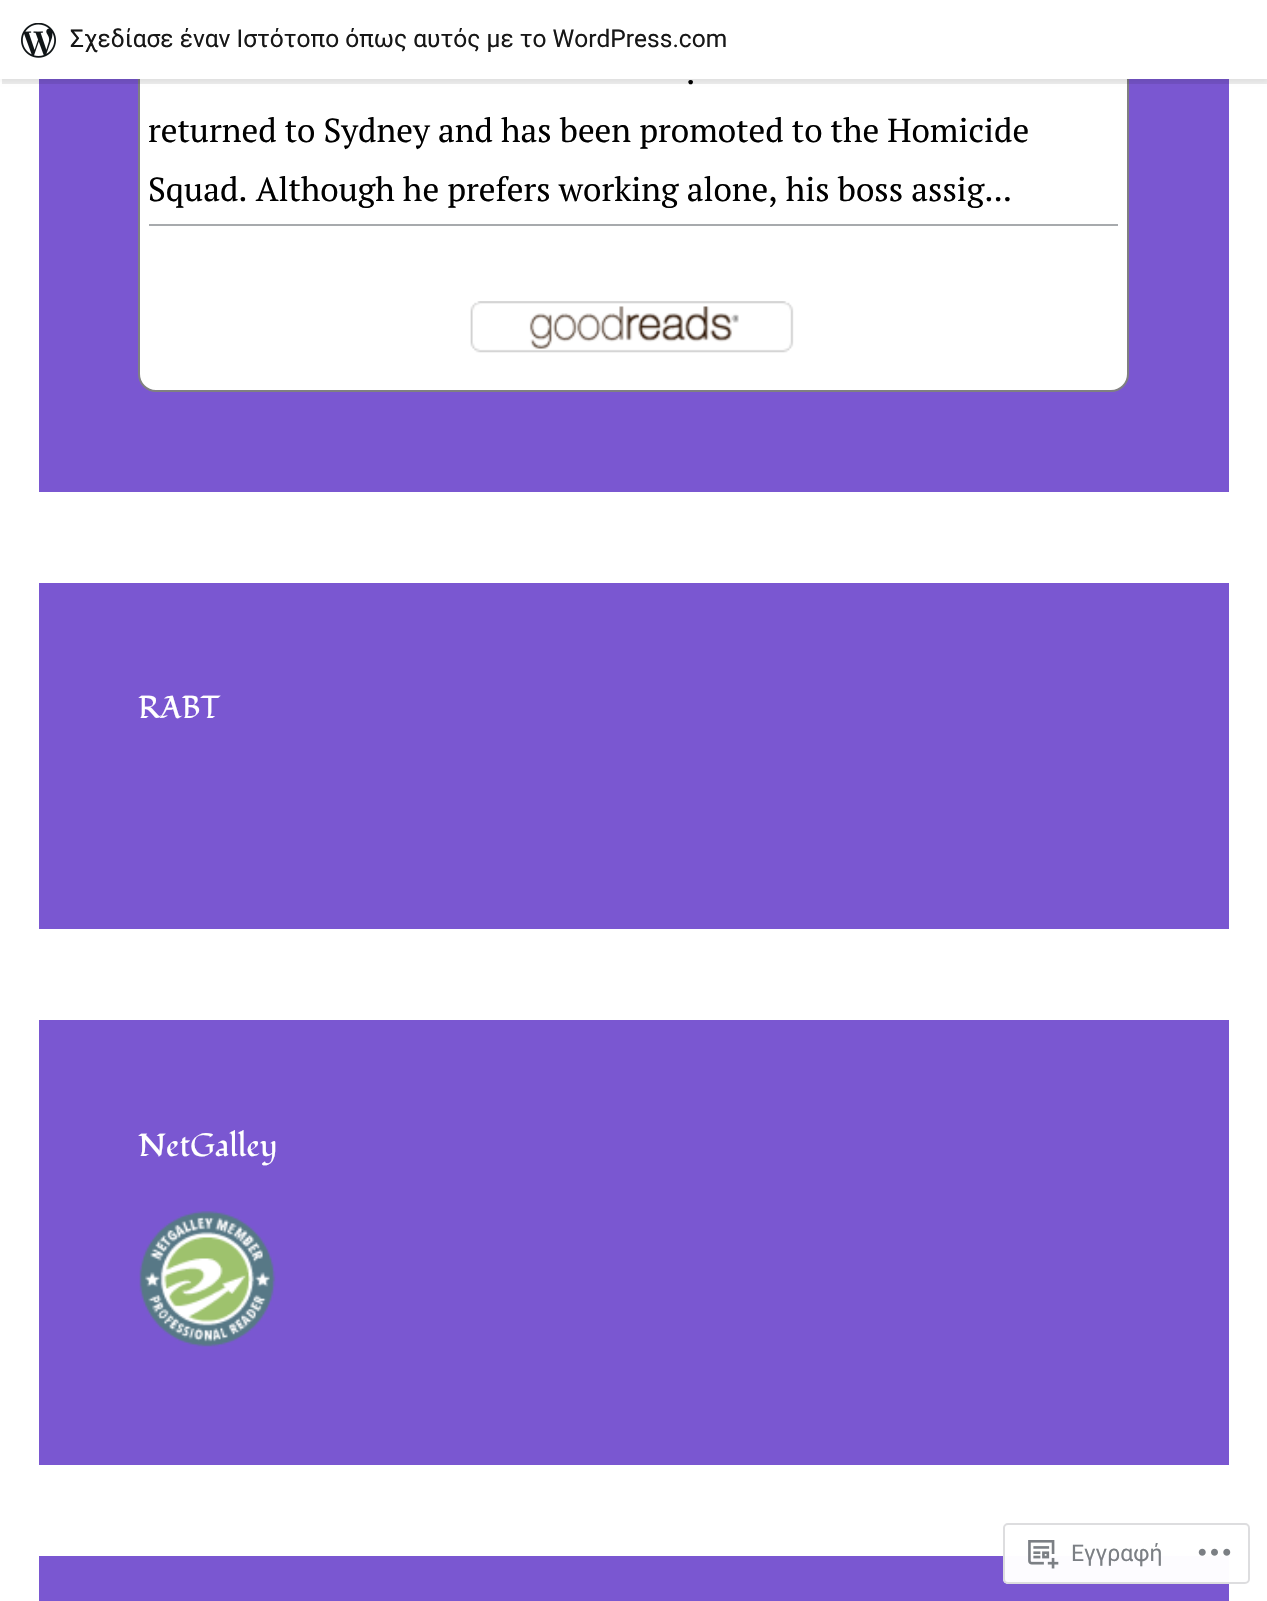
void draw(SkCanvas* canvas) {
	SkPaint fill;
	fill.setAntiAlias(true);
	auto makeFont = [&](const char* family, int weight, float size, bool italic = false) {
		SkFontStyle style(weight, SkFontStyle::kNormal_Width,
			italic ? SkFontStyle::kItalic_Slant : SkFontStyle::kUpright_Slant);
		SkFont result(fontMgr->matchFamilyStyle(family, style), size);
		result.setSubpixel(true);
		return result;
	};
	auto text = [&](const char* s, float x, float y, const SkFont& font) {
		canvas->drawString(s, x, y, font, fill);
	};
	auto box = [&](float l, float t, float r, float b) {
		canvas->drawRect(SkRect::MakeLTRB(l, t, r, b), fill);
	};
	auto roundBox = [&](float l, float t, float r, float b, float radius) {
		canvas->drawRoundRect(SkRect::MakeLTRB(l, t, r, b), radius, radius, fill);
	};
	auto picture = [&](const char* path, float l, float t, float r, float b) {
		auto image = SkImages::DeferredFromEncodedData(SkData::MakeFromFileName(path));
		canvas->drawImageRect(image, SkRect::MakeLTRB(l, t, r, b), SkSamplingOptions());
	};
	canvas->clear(0xFFFFFFFF);
	fill.setColor(0xFF7A57D1);
	box(39, 79, 1229, 492);
	fill.setColor(0xFFFFFFFF);
	canvas->drawRoundRect(SkRect::MakeLTRB(139, -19, 1128, 391), 17, 17, fill);
	fill.setStyle(SkPaint::kStroke_Style);
	fill.setStrokeWidth(2);
	fill.setColor(0xFF808080);
	canvas->drawRoundRect(SkRect::MakeLTRB(139, -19, 1128, 391), 17, 17, fill);
	fill.setStyle(SkPaint::kFill_Style);
	fill.setColor(0x0D000000);
	fill.setMaskFilter(SkMaskFilter::MakeBlur(kNormal_SkBlurStyle, 2));
	canvas->drawRect(SkRect::MakeLTRB(0, 2, 1267, 81), fill);
	fill.setMaskFilter(nullptr);
	fill.setColor(0x14000000);
	canvas->drawPath(SkPathBuilder().moveTo(2, 79).lineTo(2, 84).lineTo(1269, 84).lineTo(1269, 5).lineTo(1267, 5).lineTo(1267, 79).close().detach(), fill);
	fill.setColor(0xFFFFFFFF);
	box(0, 0, 1267, 79);
	picture("image0.png", 21, 23, 56, 58);
	fill.setColor(0xFFA7AAAD);
	box(149, 224, 1118, 226);
	picture("image1.png", 470, 301, 794, 353);
	fill.setColor(0xFF7A57D1);
	box(39, 583, 1229, 929);
	box(39, 1020, 1229, 1465);
	picture("image2.png", 139, 1211, 276, 1347);
	box(39, 1556, 1229, 1601);
	fill.setColor(0xFAFFFFFF);
	roundBox(1003, 1523, 1250, 1584, 5);
	fill.setStyle(SkPaint::kStroke_Style);
	fill.setColor(0xFADCDCDE);
	canvas->drawRoundRect(SkRect::MakeLTRB(1004, 1524, 1249, 1583), 4, 4, fill);
	picture("image3.png", 1028, 1540, 1059, 1569);
	picture("image4.png", 1198, 1548, 1231, 1556);
	auto font1 = makeFont("Roboto", 400, 24.5f);
	fill.setStyle(SkPaint::kFill_Style);
	fill.setColor(0xFF171717);
	text("Σχεδίασε έναν Ιστότοπο όπως αυτός με το WordPress.com", 70, 47, font1);
	auto font2 = makeFont("PT Serif", 400, 33.25f);
	fill.setColor(0xFF000000);
	text(".", 686, 84, font2);
	text("returned to Sydney and has been promoted to the Homicide", 148, 142, font2);
	text("Squad. Although he prefers working alone, his boss assig...", 148, 201, font2);
	auto font3 = makeFont("Fondamento", 400, 31.5f);
	fill.setColor(0xFFFFFFFF);
	text("RABT", 138, 718, font3);
	text("NetGalley", 138, 1156, font3);
	auto font4 = makeFont("Roboto", 400, 23);
	fill.setColor(0xFF7B7F84);
	text("Εγγραφή", 1071, 1561, font4);
}
